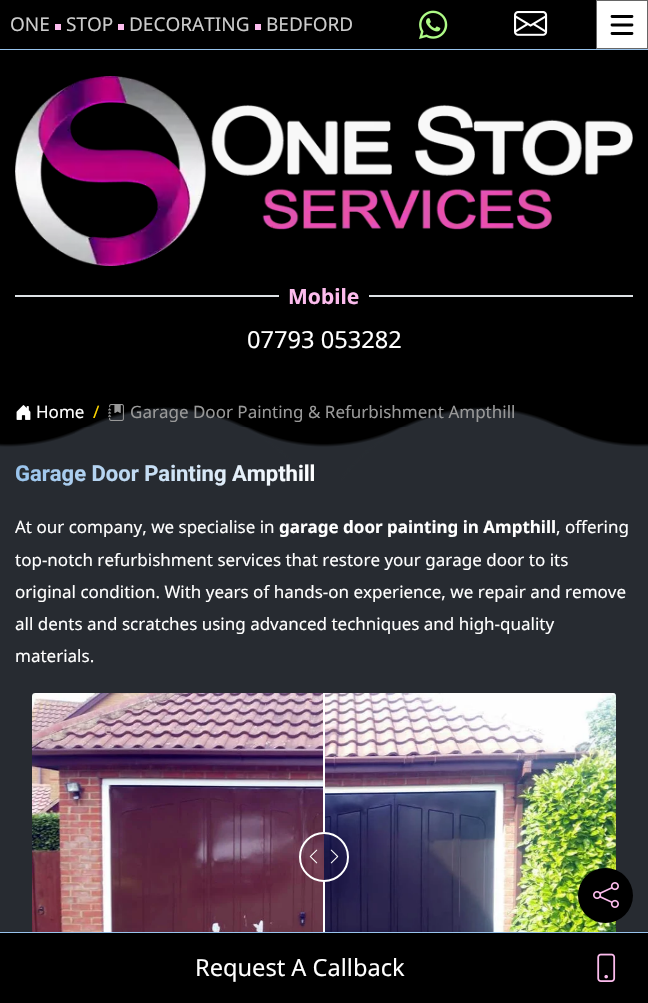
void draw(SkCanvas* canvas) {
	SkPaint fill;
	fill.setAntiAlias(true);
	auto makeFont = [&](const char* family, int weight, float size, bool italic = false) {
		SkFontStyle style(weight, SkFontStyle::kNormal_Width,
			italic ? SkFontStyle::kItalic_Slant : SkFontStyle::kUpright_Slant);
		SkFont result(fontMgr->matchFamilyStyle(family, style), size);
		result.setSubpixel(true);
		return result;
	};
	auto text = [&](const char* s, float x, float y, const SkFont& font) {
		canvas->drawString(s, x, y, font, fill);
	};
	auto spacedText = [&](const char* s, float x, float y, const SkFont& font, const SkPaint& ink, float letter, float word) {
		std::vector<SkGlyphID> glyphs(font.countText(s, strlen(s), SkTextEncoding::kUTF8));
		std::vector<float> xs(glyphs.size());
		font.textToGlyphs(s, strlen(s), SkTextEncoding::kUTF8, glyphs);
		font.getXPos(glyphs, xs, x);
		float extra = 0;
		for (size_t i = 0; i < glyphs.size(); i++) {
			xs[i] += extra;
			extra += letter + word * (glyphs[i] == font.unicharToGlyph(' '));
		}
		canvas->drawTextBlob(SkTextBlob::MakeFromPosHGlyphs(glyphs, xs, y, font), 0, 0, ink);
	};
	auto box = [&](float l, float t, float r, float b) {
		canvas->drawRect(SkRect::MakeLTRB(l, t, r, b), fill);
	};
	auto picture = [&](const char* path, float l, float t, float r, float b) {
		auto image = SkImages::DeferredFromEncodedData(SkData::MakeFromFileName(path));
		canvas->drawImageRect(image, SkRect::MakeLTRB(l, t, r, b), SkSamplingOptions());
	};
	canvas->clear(0xFF000000);
	fill.setColor(0xFF98C3EC);
	box(0, 49, 648, 50);
	fill.setColor(0xFFFCBCED);
	box(55, 24, 61, 30);
	box(118, 24, 124, 30);
	box(255, 24, 261, 30);
	picture("image0.png", 419, 10, 448, 39);
	picture("image1.png", 514, 11, 548, 36);
	fill.setColor(0xFFFFFFFF);
	canvas->drawRect(SkRect::MakeLTRB(596.5f, 0.5f, 647.5f, 48.5f), fill);
	fill.setStyle(SkPaint::kStroke_Style);
	fill.setStrokeWidth(1);
	fill.setColor(0xFF666666);
	canvas->drawRect(SkRect::MakeLTRB(596.5f, 0.5f, 647.5f, 48.5f), fill);
	fill.setStrokeWidth(2.8f);
	fill.setStrokeCap(SkPaint::kRound_Cap);
	fill.setColor(0xFF000000);
	canvas->drawPath(SkPathBuilder().moveTo(612, 16.5f).lineTo(632, 16.5f).moveTo(612, 25).lineTo(632, 25).moveTo(612, 33.5f).lineTo(632, 33.5f).detach(), fill);
	picture("image2.png", 15, 76, 633, 266);
	fill.setStyle(SkPaint::kFill_Style);
	fill.setColor(0xFFDEE2E6);
	box(15, 295, 279, 297);
	box(369, 295, 633, 297);
	{
		const SkColor colors[] = {0xFF000000, 0xFF272B31};
		const float stops[] = {0.98f, 1};
		fill.setShader(SkGradientShader::MakeRadial({8, 269}, 178, colors, stops, 2, SkTileMode::kClamp));
		fill.setAlpha(255);
	}
	box(0, 427, 91, 932);
	{
		const SkColor colors[] = {0xFF000000, 0xFF272B31};
		const float stops[] = {0.98f, 1};
		fill.setShader(SkGradientShader::MakeRadial({324, 269}, 178, colors, stops, 2, SkTileMode::kClamp));
		fill.setAlpha(255);
	}
	box(241, 427, 407, 693);
	{
		const SkColor colors[] = {0xFF000000, 0xFF272B31};
		const float stops[] = {0.98f, 1};
		fill.setShader(SkGradientShader::MakeRadial({640, 269}, 178, colors, stops, 2, SkTileMode::kClamp));
		fill.setAlpha(255);
	}
	box(557, 427, 648, 932);
	{
		const SkColor colors[] = {0xFF272B31, 0x00272B31};
		const float stops[] = {0.98f, 1};
		fill.setShader(SkGradientShader::MakeRadial({166, 585}, 178, colors, stops, 2, SkTileMode::kClamp));
		fill.setAlpha(255);
	}
	box(75, 407, 307, 702);
	{
		const SkColor colors[] = {0xFF272B31, 0x00272B31};
		const float stops[] = {0.98f, 1};
		fill.setShader(SkGradientShader::MakeRadial({482, 585}, 178, colors, stops, 2, SkTileMode::kClamp));
		fill.setAlpha(255);
	}
	box(341, 407, 573, 702);
	picture("image3.png", 16, 405, 31, 420);
	picture("image4.png", 108, 404, 124, 421);
	picture("image5.png", 32, 693, 616, 932);
	picture("image8.png", 324, 693, 616, 932);
	fill.setShader(nullptr);
	fill.setColor(0xFFFFFFFF);
	box(323, 693, 325, 832);
	fill.setStyle(SkPaint::kStroke_Style);
	fill.setStrokeWidth(2);
	fill.setStrokeCap(SkPaint::kButt_Cap);
	canvas->drawCircle(324, 857, 24, fill);
	picture("image6.png", 309, 849, 318, 864);
	picture("image7.png", 330, 849, 339, 864);
	fill.setStyle(SkPaint::kFill_Style);
	box(323, 882, 325, 932);
	fill.setColor(0xFF000000);
	canvas->drawCircle(605.5f, 895.5f, 27.5f, fill);
	picture("image9.png", 593, 882, 619, 908);
	fill.setColor(0xFF98C3EC);
	box(0, 932, 648, 933);
	picture("image10.png", 597, 953, 616, 982);
	auto font1 = makeFont("Noto Sans", 400, 19);
	fill.setColor(0xFFCCCCCC);
	text("ONE", 10, 31, font1);
	text("STOP", 66, 31, font1);
	text("DECORATING", 129, 31, font1);
	text("BEDFORD", 266, 31, font1);
	auto font2 = makeFont("Noto Sans", 700, 21);
	fill.setColor(0xFFFCBCED);
	text("Mobile", 288, 304, font2);
	auto font3 = makeFont("Noto Sans", 400, 23.6f);
	fill.setColor(0xFFFFFFFF);
	text("07793 053282", 247, 348, font3);
	auto font4 = makeFont("Noto Sans", 400, 17);
	text("Home", 36, 418, font4);
	fill.setColor(0xFFFFD700);
	text("/", 93, 418, font4);
	fill.setColor(0xFF999999);
	text("Garage Door Painting & Refurbishment Ampthill", 130, 418, font4);
	auto font5 = makeFont("Roboto", 700, 22);
	{
		const SkColor colors[] = {0xFF98C3EC, 0xFFFFFFFF};
		const float stops[] = {0, 1};
		const SkPoint ends[] = {{15, 473}, {315, 473}};
		fill.setShader(SkGradientShader::MakeLinear(ends, colors, stops, 2, SkTileMode::kClamp));
		fill.setAlpha(255);
	}
	text("Garage Door Painting Ampthill", 15, 481, font5);
	fill.setShader(nullptr);
	fill.setColor(0xFFFFFFFF);
	text("At our company, we specialise in", 15, 533, font4);
	auto font6 = makeFont("Noto Sans", 700, 17);
	text("garage door painting in Ampthill", 279, 533, font6);
	text(", offering", 556, 533, font4);
	text("top-notch refurbishment services that restore your garage door to its", 15, 566, font4);
	text("original condition. With years of hands-on experience, we repair and remove", 15, 598, font4);
	text("all dents and scratches using advanced techniques and high-quality", 15, 630, font4);
	text("materials.", 15, 662, font4);
	auto font7 = makeFont("Noto Sans", 400, 14);
	fill.setColor(0xFFC2A3AD);
	spacedText("e", 104, 734, font7, fill, 1, 0);
	fill.setColor(0xFFFFFFFF);
	text("Request A Callback", 195, 976, font3);
}
